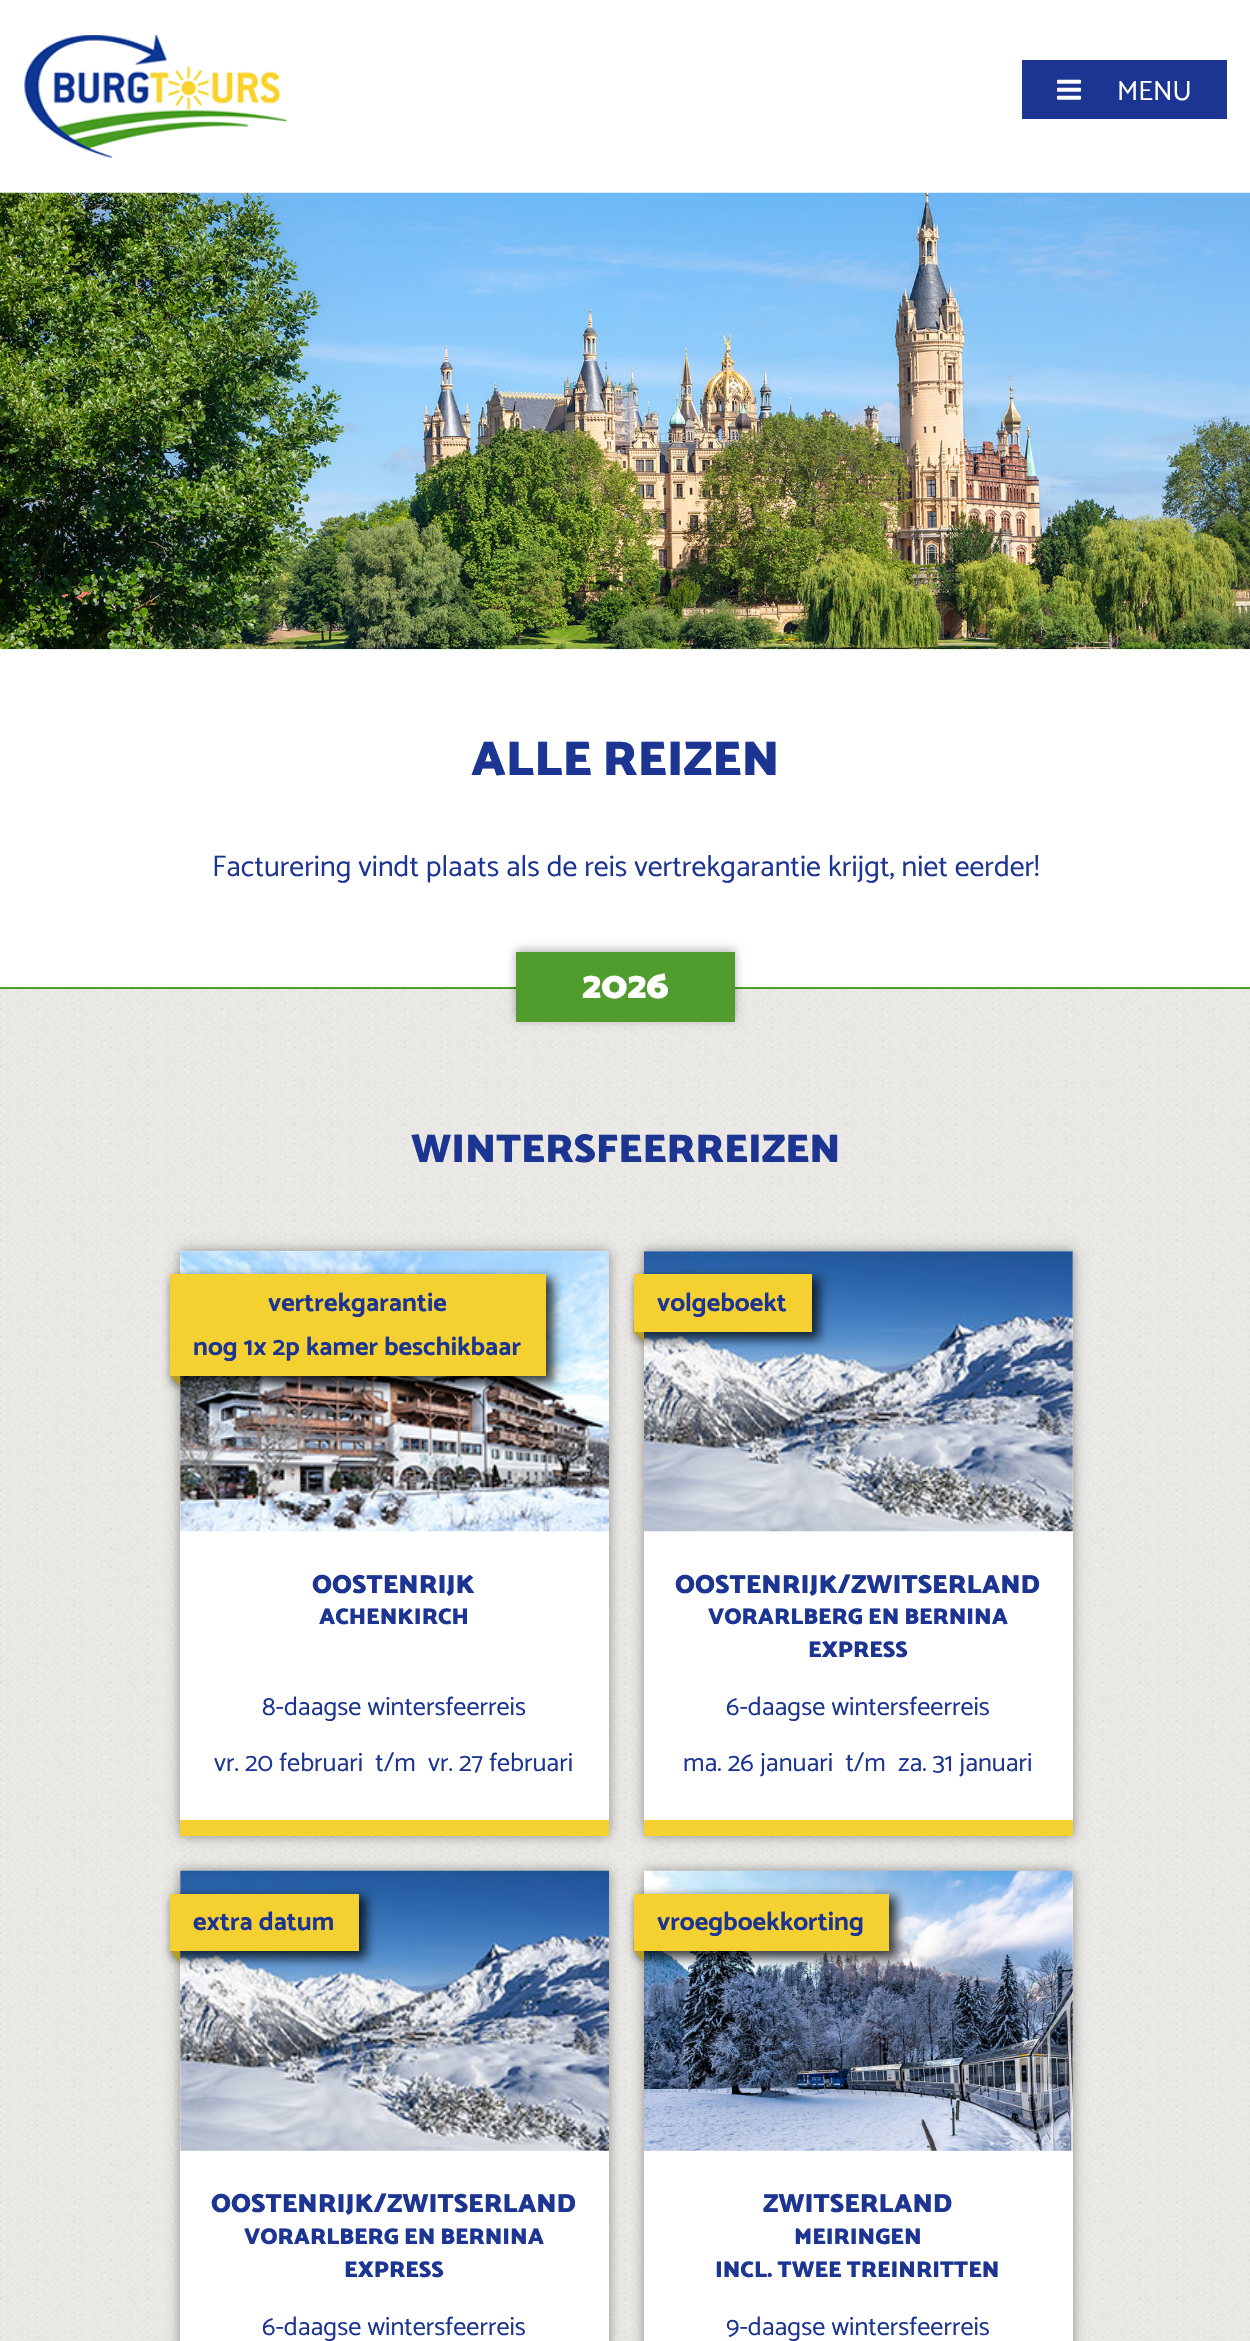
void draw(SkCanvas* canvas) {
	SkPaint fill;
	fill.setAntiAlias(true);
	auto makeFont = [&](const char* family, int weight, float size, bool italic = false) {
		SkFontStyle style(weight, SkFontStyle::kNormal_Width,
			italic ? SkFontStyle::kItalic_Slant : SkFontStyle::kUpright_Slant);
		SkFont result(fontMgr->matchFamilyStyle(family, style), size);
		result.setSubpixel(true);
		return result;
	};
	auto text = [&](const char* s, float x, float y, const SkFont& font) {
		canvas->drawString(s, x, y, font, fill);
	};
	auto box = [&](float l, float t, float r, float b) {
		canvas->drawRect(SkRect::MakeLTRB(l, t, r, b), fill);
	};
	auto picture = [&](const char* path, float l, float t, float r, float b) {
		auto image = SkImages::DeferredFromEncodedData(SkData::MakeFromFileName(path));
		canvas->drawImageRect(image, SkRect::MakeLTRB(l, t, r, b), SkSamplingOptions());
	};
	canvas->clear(0xFFFFFFFF);
	picture("image0.png", 24, 35, 287, 158);
	fill.setColor(0xFF1D3592);
	box(1022, 60, 1227, 119);
	picture("image1.png", 1057, 79, 1081, 100);
	picture("image2.png", 0, 192, 1250, 650);
	fill.setColor(0xFF509D2D);
	box(0, 987, 1250, 989);
	picture("image3.png", 0, 989, 1250, 2341);
	fill.setColor(0x4D000000);
	fill.setMaskFilter(SkMaskFilter::MakeBlur(kNormal_SkBlurStyle, 4.5f));
	canvas->drawRect(SkRect::MakeLTRB(516, 950, 735, 1020), fill);
	fill.setMaskFilter(nullptr);
	fill.setColor(0xFF509D2D);
	box(516, 952, 735, 1022);
	fill.setColor(0x66000000);
	fill.setMaskFilter(SkMaskFilter::MakeBlur(kNormal_SkBlurStyle, 6));
	canvas->drawRect(SkRect::MakeLTRB(180, 1251, 609, 1836), fill);
	fill.setMaskFilter(nullptr);
	fill.setColor(0xFFF4D131);
	box(180, 1820, 609, 1836);
	fill.setColor(0xFFFFFFFF);
	box(180, 1251, 609, 1820);
	picture("image4.png", 180, 1251, 609, 1532);
	fill.setColor(0xBF000000);
	fill.setMaskFilter(SkMaskFilter::MakeBlur(kNormal_SkBlurStyle, 5));
	canvas->drawRect(SkRect::MakeLTRB(173, 1278, 553, 1383), fill);
	fill.setMaskFilter(nullptr);
	fill.setColor(0xFFF4D131);
	box(170, 1274, 546, 1376);
	fill.setColor(0xFFB59A23);
	canvas->drawPath(SkPathBuilder().moveTo(180, 1365).lineTo(180, 1386).lineTo(170, 1375.5f).lineTo(170, 1365).close().detach(), fill);
	fill.setColor(0xFFF4D131);
	box(170, 1365, 180, 1376);
	fill.setColor(0x66000000);
	fill.setMaskFilter(SkMaskFilter::MakeBlur(kNormal_SkBlurStyle, 6));
	canvas->drawRect(SkRect::MakeLTRB(644, 1251, 1073, 1836), fill);
	fill.setMaskFilter(nullptr);
	fill.setColor(0xFFF4D131);
	box(644, 1820, 1073, 1836);
	fill.setColor(0xFFFFFFFF);
	box(644, 1251, 1073, 1820);
	picture("image5.png", 644, 1251, 1073, 1532);
	fill.setColor(0xBF000000);
	fill.setMaskFilter(SkMaskFilter::MakeBlur(kNormal_SkBlurStyle, 5));
	canvas->drawRect(SkRect::MakeLTRB(637, 1278, 819, 1339), fill);
	fill.setMaskFilter(nullptr);
	fill.setColor(0xFFF4D131);
	box(634, 1274, 812, 1332);
	fill.setColor(0xFFB59A23);
	canvas->drawPath(SkPathBuilder().moveTo(644, 1321).lineTo(644, 1342).lineTo(633.5f, 1332).lineTo(633.5f, 1321).close().detach(), fill);
	fill.setColor(0xFFF4D131);
	box(634, 1321, 644, 1332);
	fill.setColor(0x66000000);
	fill.setMaskFilter(SkMaskFilter::MakeBlur(kNormal_SkBlurStyle, 6));
	canvas->drawRect(SkRect::MakeLTRB(180, 1871, 609, 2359), fill);
	fill.setMaskFilter(nullptr);
	fill.setColor(0xFFFFFFFF);
	box(180, 1871, 609, 2341);
	picture("image6.png", 180, 1870, 609, 2151);
	fill.setColor(0xBF000000);
	fill.setMaskFilter(SkMaskFilter::MakeBlur(kNormal_SkBlurStyle, 5));
	canvas->drawRect(SkRect::MakeLTRB(173, 1897, 366, 1958), fill);
	fill.setMaskFilter(nullptr);
	fill.setColor(0xFFF4D131);
	box(170, 1894, 359, 1951);
	fill.setColor(0xFFB59A23);
	canvas->drawPath(SkPathBuilder().moveTo(180, 1941).lineTo(180, 1962).lineTo(170, 1951).lineTo(170, 1941).close().detach(), fill);
	fill.setColor(0xFFF4D131);
	box(170, 1941, 180, 1951);
	fill.setColor(0x66000000);
	fill.setMaskFilter(SkMaskFilter::MakeBlur(kNormal_SkBlurStyle, 6));
	canvas->drawRect(SkRect::MakeLTRB(644, 1871, 1073, 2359), fill);
	fill.setMaskFilter(nullptr);
	fill.setColor(0xFFFFFFFF);
	box(644, 1871, 1073, 2341);
	picture("image7.png", 644, 1870, 1073, 2151);
	fill.setColor(0xBF000000);
	fill.setMaskFilter(SkMaskFilter::MakeBlur(kNormal_SkBlurStyle, 5));
	canvas->drawRect(SkRect::MakeLTRB(637, 1897, 896, 1958), fill);
	fill.setMaskFilter(nullptr);
	fill.setColor(0xFFF4D131);
	box(634, 1894, 889, 1951);
	fill.setColor(0xFFB59A23);
	canvas->drawPath(SkPathBuilder().moveTo(644, 1941).lineTo(644, 1962).lineTo(633.5f, 1951).lineTo(633.5f, 1941).close().detach(), fill);
	fill.setColor(0xFFF4D131);
	box(634, 1941, 644, 1951);
	auto font1 = makeFont("Catamaran", 400, 28);
	fill.setColor(0xFFFFFFFF);
	text("MENU", 1117, 100, font1);
	auto font2 = makeFont("Catamaran", 900, 49);
	fill.setColor(0xFF1D3592);
	text("ALLE REIZEN", 471, 775, font2);
	auto font3 = makeFont("Catamaran", 400, 29.75f);
	text("Facturering vindt plaats als de reis vertrekgarantie krijgt, niet eerder!", 212, 876, font3);
	auto font4 = makeFont("Catamaran", 900, 38.5f);
	fill.setColor(0xFFFFFFFF);
	text("2026", 582, 998, font4);
	auto font5 = makeFont("Catamaran", 900, 40.25f);
	fill.setColor(0xFF1D3592);
	text("WINTERSFEERREIZEN", 411, 1162, font5);
	auto font6 = makeFont("Catamaran", 700, 26.25f);
	text("vertrekgarantie", 268, 1311, font6);
	text("nog 1x 2p kamer beschikbaar", 193, 1355, font6);
	auto font7 = makeFont("Catamaran", 900, 26.25f);
	text("OOSTENRIJK", 312, 1593, font7);
	auto font8 = makeFont("Catamaran", 900, 22.75f);
	text("ACHENKIRCH", 319, 1624, font8);
	auto font9 = makeFont("Catamaran", 400, 26.25f);
	text("8-daagse wintersfeerreis", 262, 1715, font9);
	text("vr. 20 februari  t/m  vr. 27 februari", 214, 1771, font9);
	text("volgeboekt", 657, 1311, font6);
	text("OOSTENRIJK/ZWITSERLAND", 675, 1593, font7);
	text("VORARLBERG EN BERNINA", 708, 1624, font8);
	text("EXPRESS", 808, 1657, font8);
	text("6-daagse wintersfeerreis", 726, 1715, font9);
	text("ma. 26 januari  t/m  za. 31 januari", 683, 1771, font9);
	text("extra datum", 193, 1930, font6);
	text("OOSTENRIJK/ZWITSERLAND", 211, 2212, font7);
	text("VORARLBERG EN BERNINA", 244, 2244, font8);
	text("EXPRESS", 344, 2277, font8);
	text("6-daagse wintersfeerreis", 262, 2335, font9);
	text("vroegboekkorting", 657, 1930, font6);
	text("ZWITSERLAND", 763, 2212, font7);
	text("MEIRINGEN", 794, 2244, font8);
	text("INCL. TWEE TREINRITTEN", 715, 2277, font8);
	text("9-daagse wintersfeerreis", 726, 2335, font9);
}
